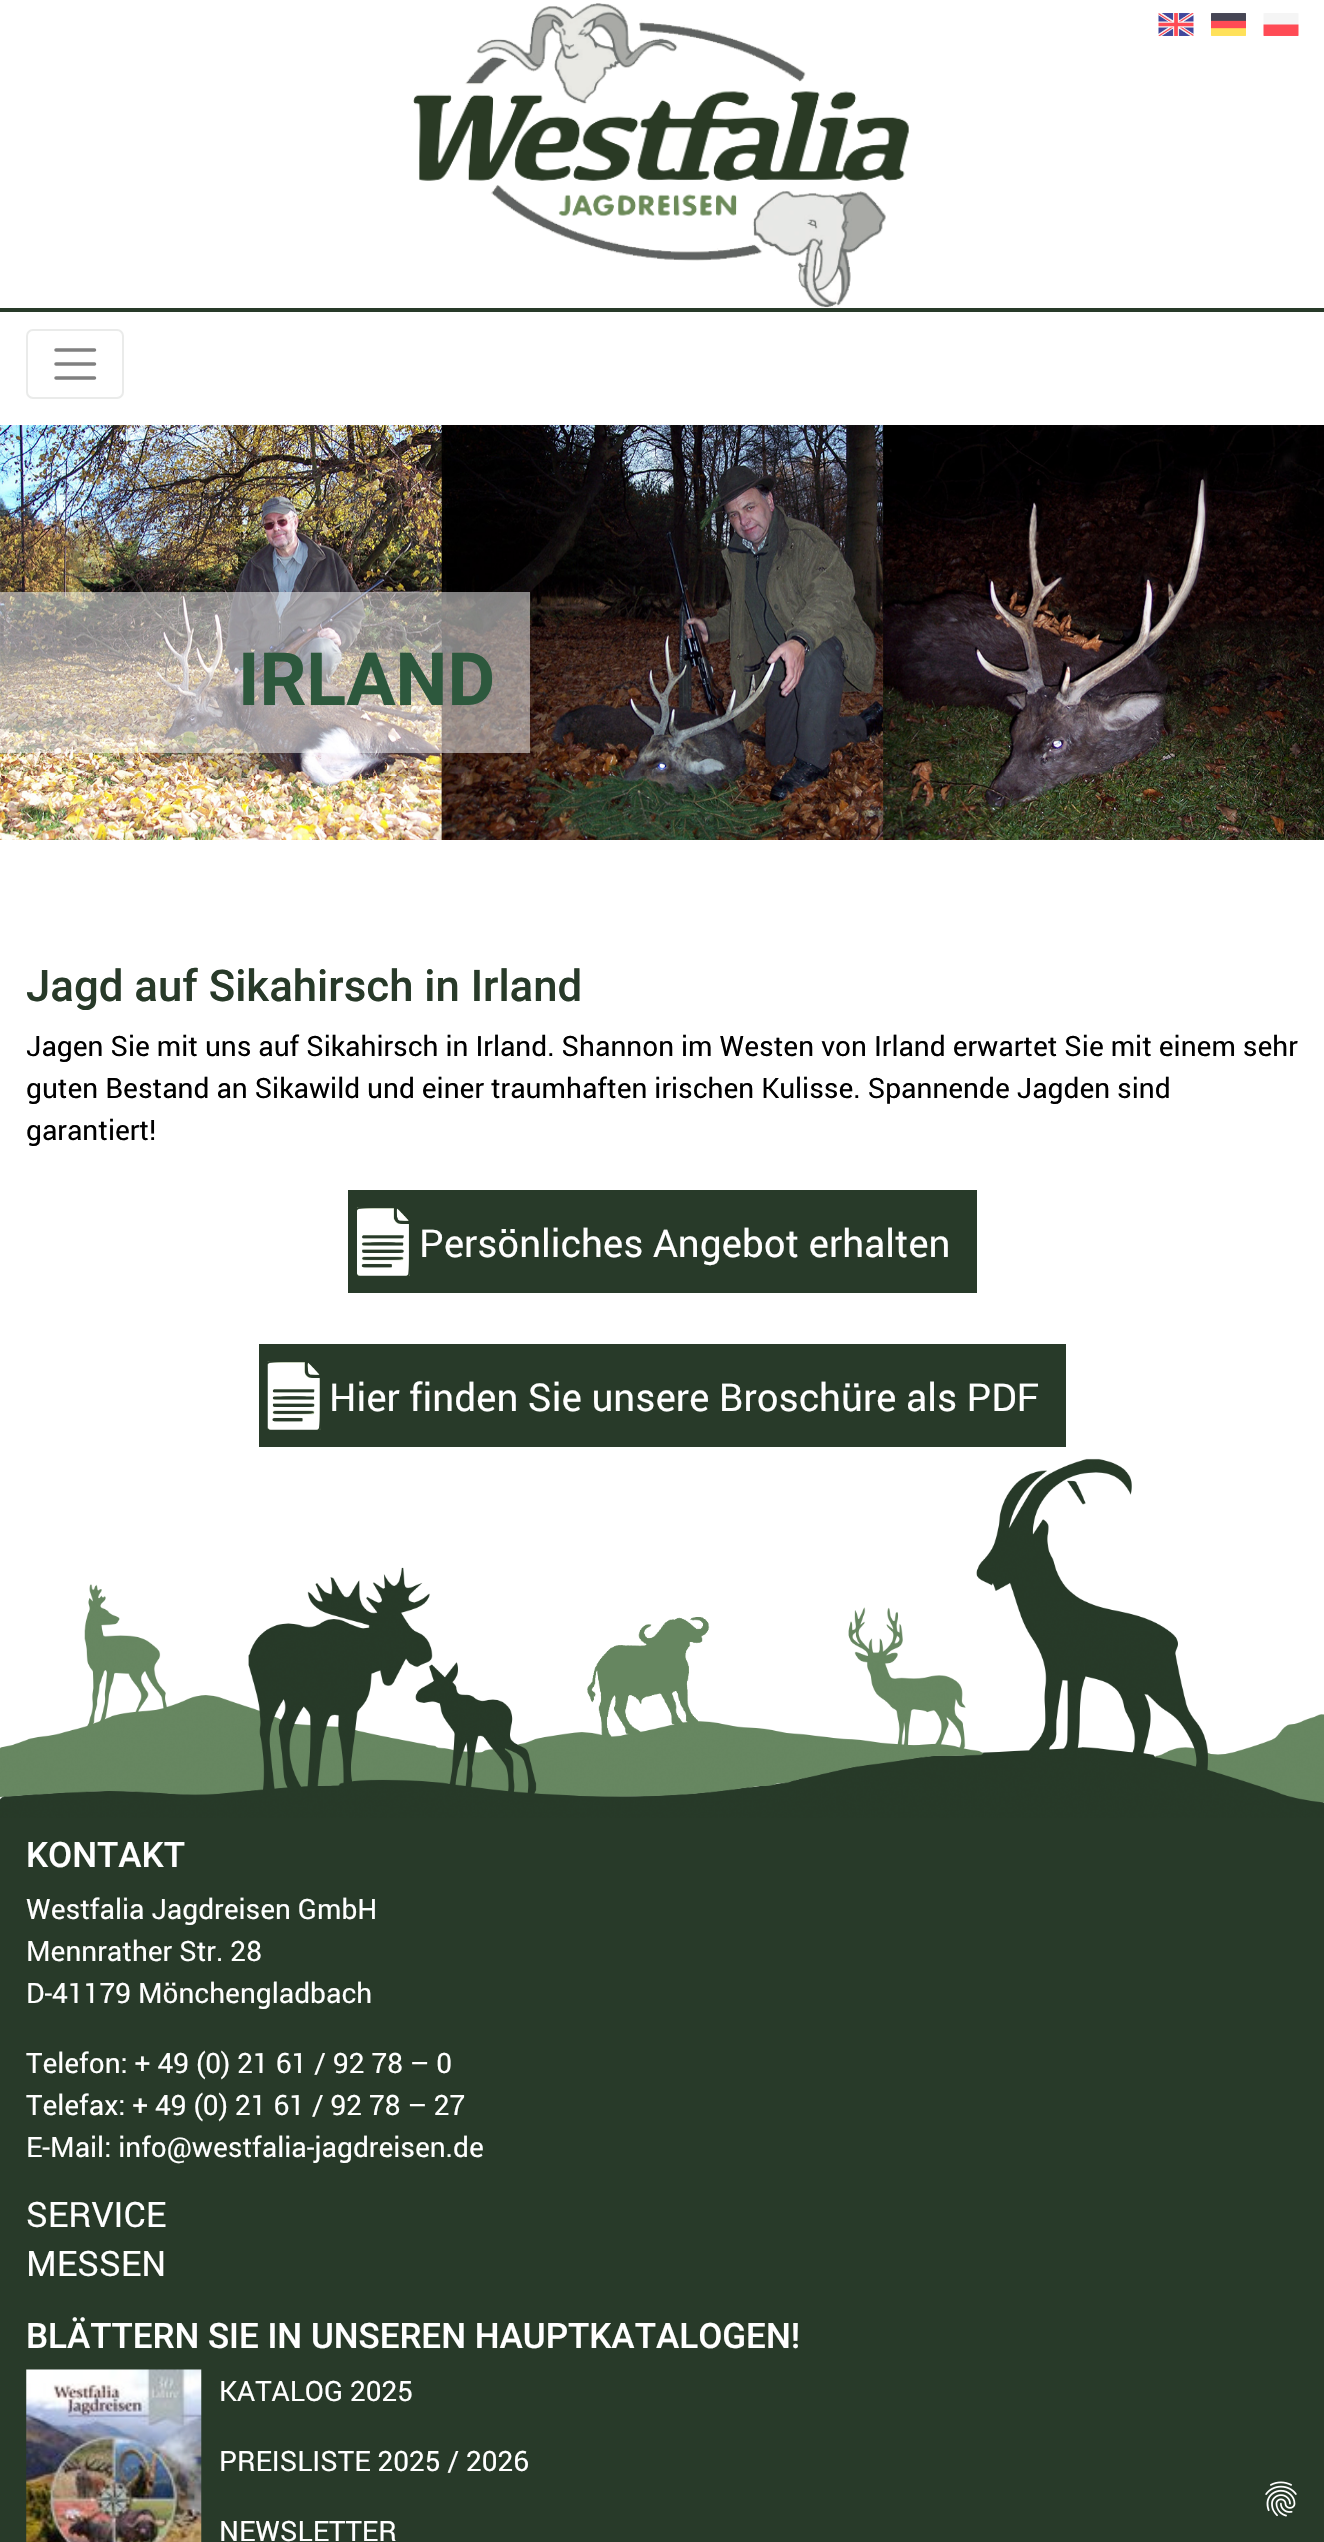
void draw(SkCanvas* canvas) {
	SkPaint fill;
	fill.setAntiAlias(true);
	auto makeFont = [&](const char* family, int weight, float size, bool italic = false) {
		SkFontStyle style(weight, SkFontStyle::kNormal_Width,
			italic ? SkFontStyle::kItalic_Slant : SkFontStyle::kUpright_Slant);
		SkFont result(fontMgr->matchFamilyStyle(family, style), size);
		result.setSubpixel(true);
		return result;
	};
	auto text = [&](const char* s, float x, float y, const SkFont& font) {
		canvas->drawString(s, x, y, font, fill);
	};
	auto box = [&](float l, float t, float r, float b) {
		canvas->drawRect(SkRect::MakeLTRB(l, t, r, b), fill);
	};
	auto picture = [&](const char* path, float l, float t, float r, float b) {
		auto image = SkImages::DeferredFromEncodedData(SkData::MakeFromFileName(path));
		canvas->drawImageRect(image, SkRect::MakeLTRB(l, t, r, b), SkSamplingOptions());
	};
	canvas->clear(0xFFFFFFFF);
	picture("image0.png", 0, 1458, 1324, 1818);
	picture("image1.png", 413, 3, 909, 308);
	picture("image2.png", 1158, 13, 1194, 36);
	picture("image3.png", 1211, 13, 1246, 36);
	picture("image4.png", 1263, 13, 1299, 36);
	fill.setColor(0xFF283A29);
	box(0, 308, 1324, 312);
	fill.setStyle(SkPaint::kStroke_Style);
	fill.setStrokeWidth(2);
	fill.setColor(0xFFEAEBEA);
	canvas->drawRoundRect(SkRect::MakeLTRB(27, 330, 123, 398), 6, 6, fill);
	fill.setStrokeWidth(3.5f);
	fill.setStrokeCap(SkPaint::kRound_Cap);
	fill.setColor(0xFF808080);
	canvas->drawPath(SkPathBuilder().moveTo(56, 350).lineTo(94.5f, 350).moveTo(56, 364).lineTo(94.5f, 364).moveTo(56, 378).lineTo(94.5f, 378).detach(), fill);
	picture("image5.png", 0, 425, 1324, 840);
	fill.setStyle(SkPaint::kFill_Style);
	fill.setColor(0x80FFFFFF);
	box(0, 592, 530, 753);
	fill.setColor(0xFF283A29);
	box(348, 1190, 977, 1293);
	picture("image6.png", 357, 1207, 410, 1276);
	box(259, 1344, 1066, 1447);
	picture("image7.png", 267, 1361, 321, 1430);
	box(0, 1818, 1324, 2542);
	picture("image8.png", 26, 2369, 202, 2542);
	picture("image9.png", 1265, 2481, 1297, 2517);
	auto font1 = makeFont("Roboto", 700, 73.5f);
	fill.setColor(0xFF2D583D);
	text("IRLAND", 238, 705, font1);
	auto font2 = makeFont("Roboto", 500, 43.75f);
	fill.setColor(0xFF283A29);
	text("Jagd auf Sikahirsch in Irland", 26, 1001, font2);
	auto font3 = makeFont("Roboto", 400, 28);
	fill.setColor(0xFF000000);
	text("Jagen Sie mit uns auf Sikahirsch in Irland. Shannon im Westen von Irland erwartet Sie mit einem sehr", 26, 1056, font3);
	text("guten Bestand an Sikawild und einer traumhaften irischen Kulisse. Spannende Jagden sind", 26, 1098, font3);
	text("garantiert!", 26, 1140, font3);
	auto font4 = makeFont("Roboto", 400, 38.5f);
	fill.setColor(0xFFFFFFFF);
	text("Persönliches Angebot erhalten", 419, 1257, font4);
	text("Hier finden Sie unsere Broschüre als PDF", 329, 1411, font4);
	auto font5 = makeFont("Roboto", 500, 35);
	text("KONTAKT", 26, 1867, font5);
	text("Westfalia Jagdreisen GmbH", 26, 1919, font3);
	text("Mennrather Str. 28", 26, 1961, font3);
	text("D-41179 Mönchengladbach", 26, 2003, font3);
	text("Telefon: + 49 (0) 21 61 / 92 78 – 0", 26, 2073, font3);
	text("Telefax: + 49 (0) 21 61 / 92 78 – 27", 26, 2115, font3);
	text("E-Mail: info@westfalia-jagdreisen.de", 26, 2157, font3);
	auto font6 = makeFont("Roboto", 400, 35);
	text("SERVICE", 26, 2227, font6);
	text("MESSEN", 26, 2276, font6);
	text("BLÄTTERN SIE IN UNSEREN HAUPTKATALOGEN!", 26, 2348, font5);
	text("KATALOG 2025", 219, 2401, font3);
	text("PREISLISTE 2025 / 2026", 219, 2471, font3);
	text("NEWSLETTER", 219, 2541, font3);
}
